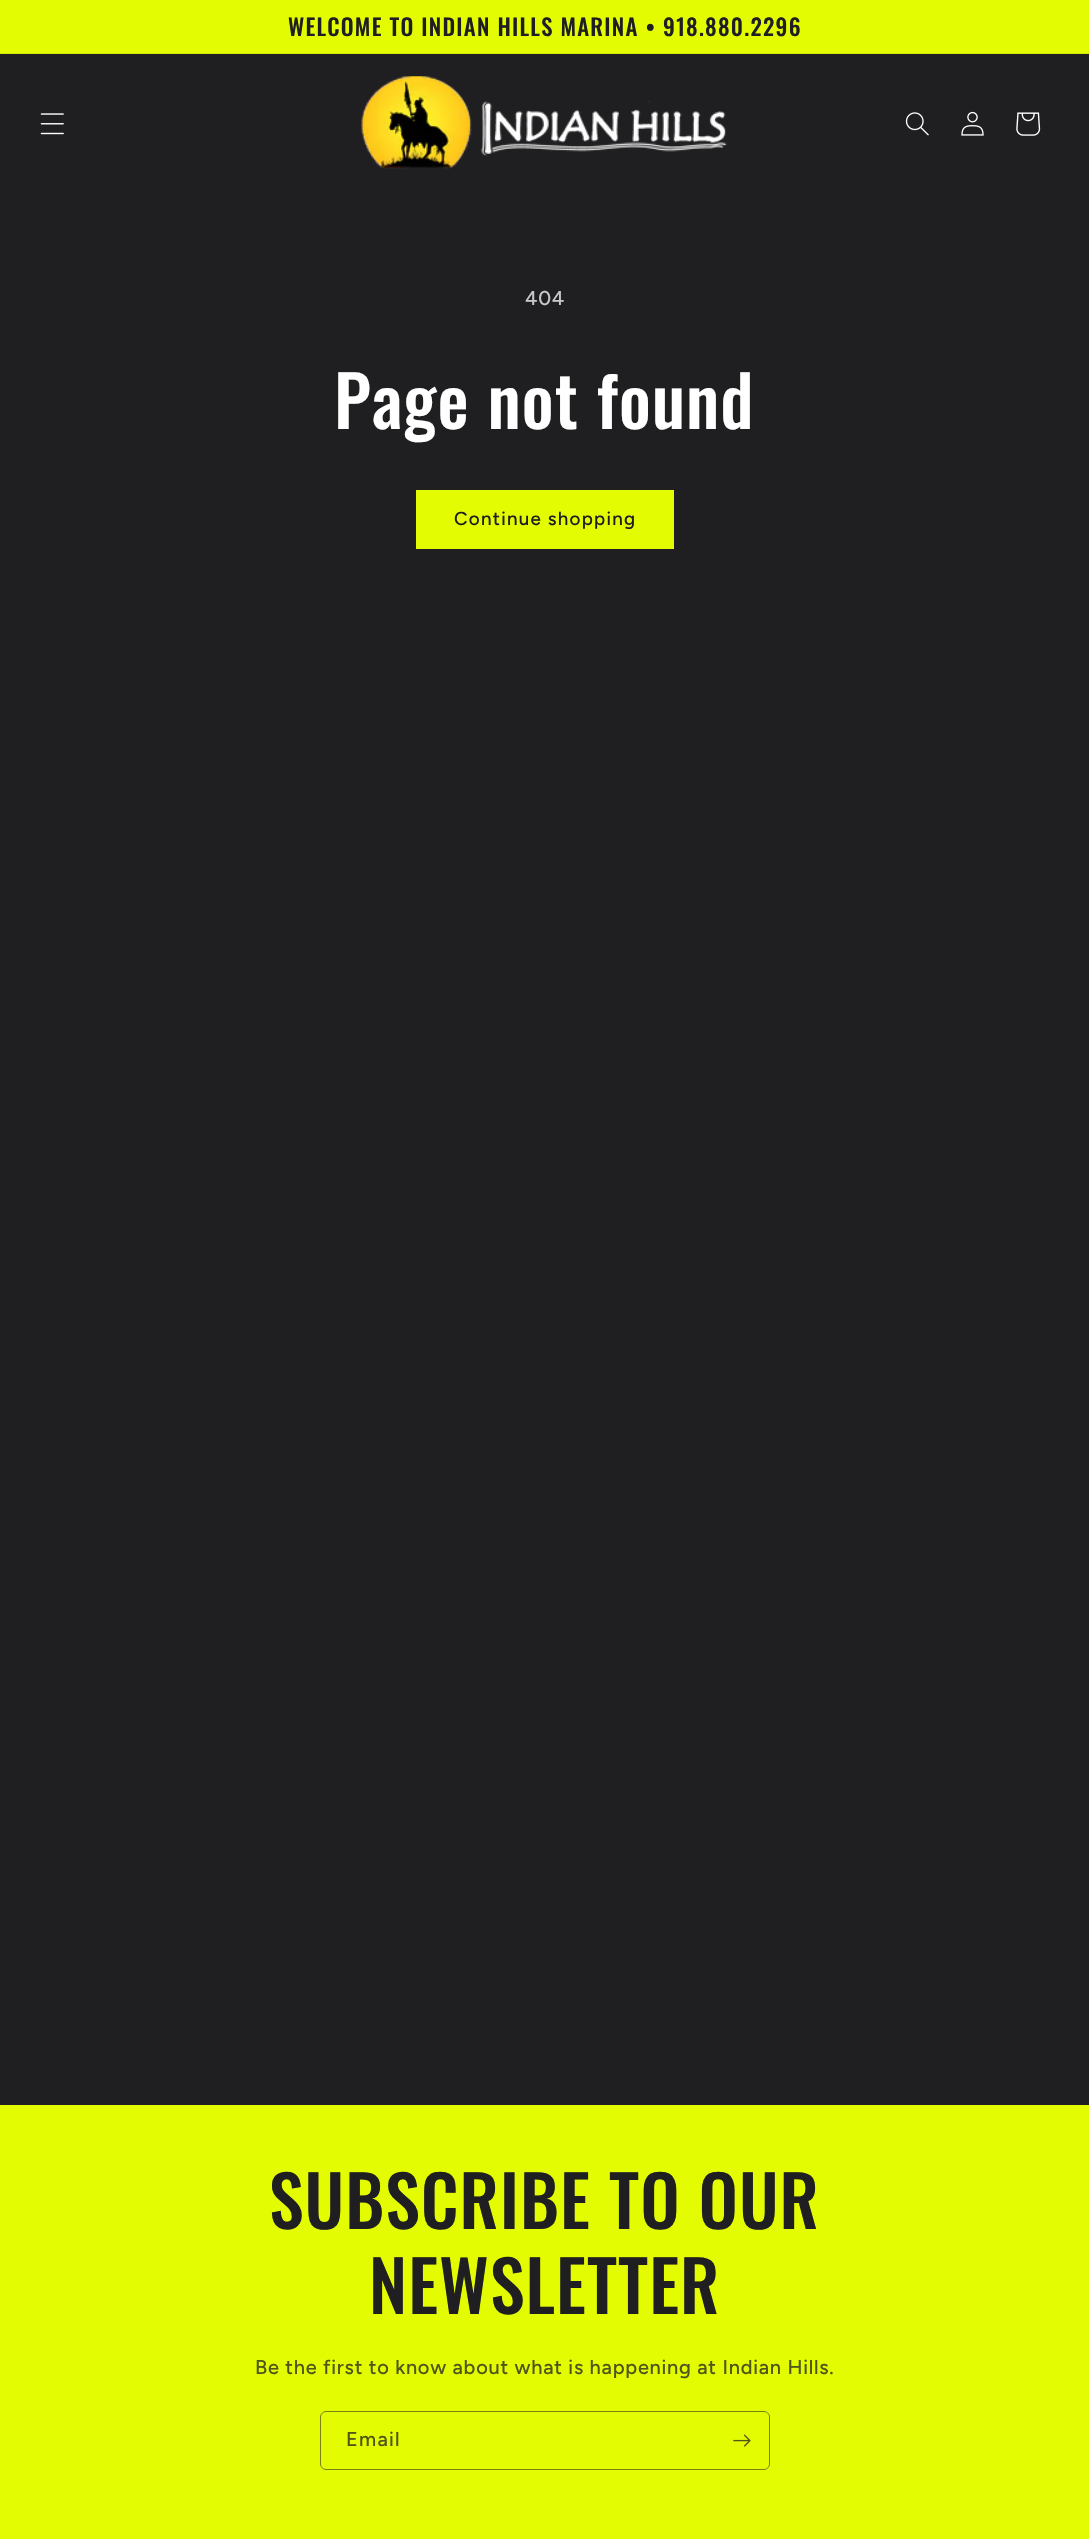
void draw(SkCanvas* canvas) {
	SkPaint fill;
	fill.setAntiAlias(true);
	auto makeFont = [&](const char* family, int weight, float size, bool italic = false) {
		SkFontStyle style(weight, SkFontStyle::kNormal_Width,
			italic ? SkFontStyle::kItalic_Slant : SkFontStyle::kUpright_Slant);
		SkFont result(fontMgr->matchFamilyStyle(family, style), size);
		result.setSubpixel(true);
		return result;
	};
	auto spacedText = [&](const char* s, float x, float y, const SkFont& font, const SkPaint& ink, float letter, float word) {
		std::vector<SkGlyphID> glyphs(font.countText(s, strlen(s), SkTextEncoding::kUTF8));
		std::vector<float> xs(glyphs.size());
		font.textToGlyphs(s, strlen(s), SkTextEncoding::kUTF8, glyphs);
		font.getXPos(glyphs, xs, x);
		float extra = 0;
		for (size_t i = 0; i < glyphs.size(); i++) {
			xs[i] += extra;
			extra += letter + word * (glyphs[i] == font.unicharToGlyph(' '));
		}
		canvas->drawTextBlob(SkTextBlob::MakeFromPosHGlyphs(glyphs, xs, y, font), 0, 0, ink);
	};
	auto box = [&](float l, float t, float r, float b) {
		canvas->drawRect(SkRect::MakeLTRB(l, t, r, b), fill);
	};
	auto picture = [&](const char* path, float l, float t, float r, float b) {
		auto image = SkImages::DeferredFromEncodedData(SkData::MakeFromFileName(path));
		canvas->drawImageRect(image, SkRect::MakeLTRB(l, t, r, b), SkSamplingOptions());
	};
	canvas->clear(0xFF1F1F21);
	fill.setColor(0xFFE3FC02);
	box(0, 0, 1089, 53);
	fill.setColor(0xFFD3EA04);
	box(0, 53, 1089, 54);
	picture("image0.png", 40, 113, 64, 135);
	picture("image1.png", 361, 76, 727, 169);
	picture("image2.png", 905, 112, 929, 136);
	picture("image3.png", 961, 111, 984, 136);
	picture("image4.png", 1016, 112, 1041, 136);
	fill.setColor(0xFFE3FC02);
	box(416, 490, 674, 549);
	box(0, 2105, 1089, 2539);
	fill.setStyle(SkPaint::kStroke_Style);
	fill.setStrokeWidth(1);
	fill.setColor(0xFF778213);
	canvas->drawRoundRect(SkRect::MakeLTRB(320.5f, 2411.5f, 769.5f, 2469.5f), 5.5f, 5.5f, fill);
	picture("image5.png", 733, 2434, 751, 2447);
	auto font1 = makeFont("Oswald", 500, 22.75f);
	fill.setStyle(SkPaint::kFill_Style);
	fill.setColor(0xFF1F1F21);
	spacedText("WELCOME TO INDIAN HILLS MARINA • 918.880.2296", 288, 36, font1, fill, 1.25f, 0);
	auto font2 = makeFont("Figtree", 500, 20);
	fill.setColor(0xFFC7C7C8);
	spacedText("404", 525, 305, font2, fill, 0.75f, 0);
	auto font3 = makeFont("Oswald", 500, 70);
	fill.setColor(0xFFFFFFFF);
	spacedText("Page not found", 334, 429, font3, fill, 1, 0);
	auto font4 = makeFont("Figtree", 500, 18.75f);
	fill.setColor(0xFF1F1F21);
	spacedText("Continue shopping", 454, 525, font4, fill, 1.25f, 0);
	spacedText("SUBSCRIBE TO OUR", 269, 2229, font3, fill, 1, 0);
	spacedText("NEWSLETTER", 369, 2314, font3, fill, 1, 0);
	fill.setColor(0xFF505619);
	spacedText("Be the first to know about what is happening at Indian Hills.", 255, 2374, font2, fill, 0.75f, 0);
	spacedText("Email", 346, 2446, font2, fill, 1.25f, 0);
}
